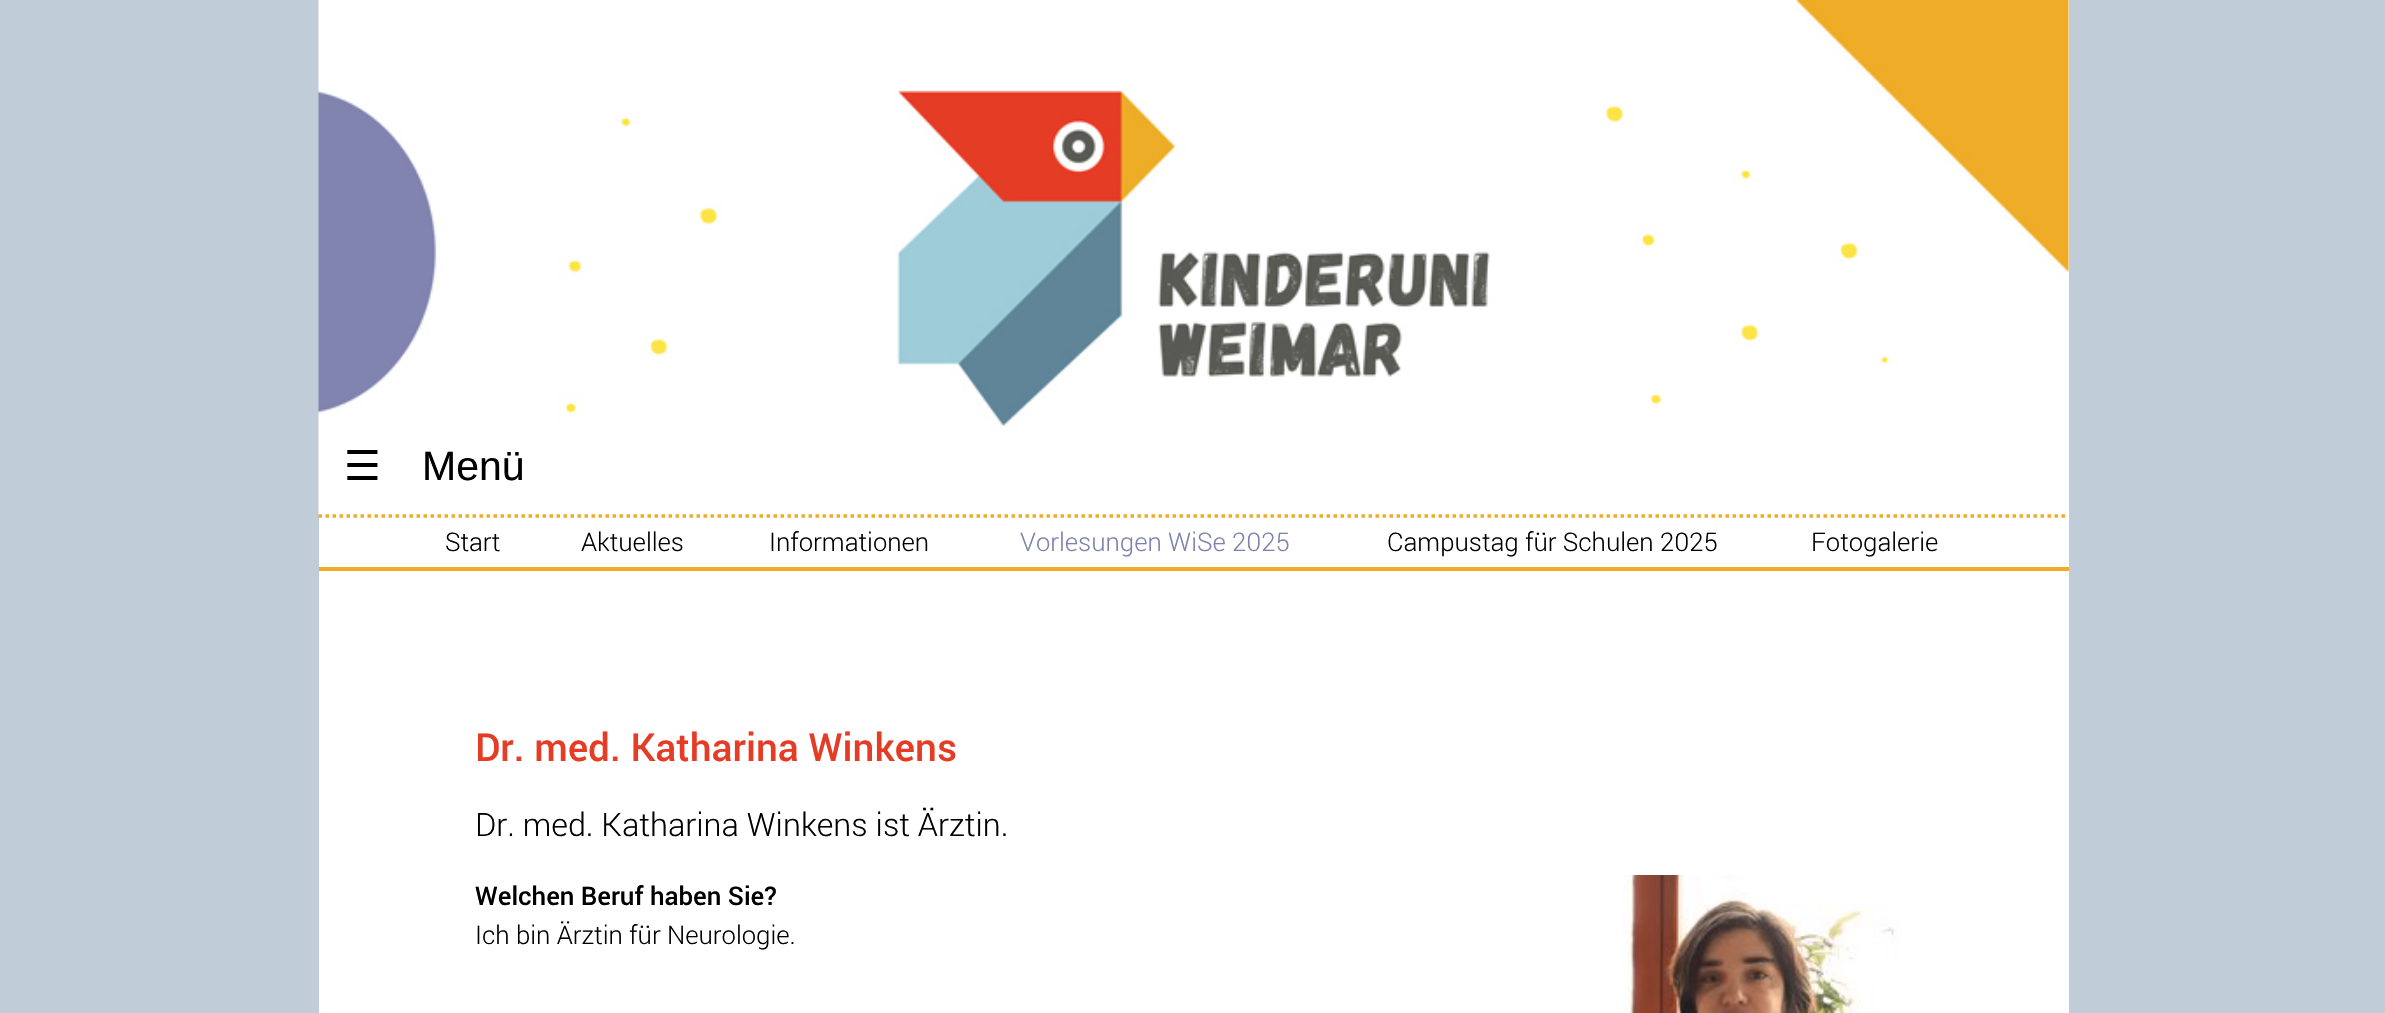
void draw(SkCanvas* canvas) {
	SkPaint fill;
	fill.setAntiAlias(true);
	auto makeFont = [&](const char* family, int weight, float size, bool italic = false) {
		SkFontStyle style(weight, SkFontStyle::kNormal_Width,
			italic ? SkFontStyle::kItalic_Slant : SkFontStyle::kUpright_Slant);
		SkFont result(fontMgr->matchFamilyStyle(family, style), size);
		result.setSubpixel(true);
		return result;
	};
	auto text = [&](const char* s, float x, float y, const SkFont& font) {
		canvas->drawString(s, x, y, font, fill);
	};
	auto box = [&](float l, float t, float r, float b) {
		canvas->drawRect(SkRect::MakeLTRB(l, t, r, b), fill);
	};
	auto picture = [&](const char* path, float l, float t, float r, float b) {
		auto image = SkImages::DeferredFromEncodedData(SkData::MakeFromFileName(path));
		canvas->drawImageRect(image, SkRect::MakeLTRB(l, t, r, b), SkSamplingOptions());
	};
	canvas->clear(0xFFC0CDD9);
	fill.setColor(0xFFFFFFFF);
	box(319, 0, 2069, 1013);
	picture("image0.png", 318, 0, 2069, 515);
	fill.setStyle(SkPaint::kStroke_Style);
	fill.setStrokeWidth(3.5f);
	fill.setColor(0xFFEDAD27);
	fill.setPathEffect(SkDashPathEffect::Make({{3.5f, 3.5f}}, 0));
	canvas->drawPath(SkPathBuilder().moveTo(318.5f, 516).lineTo(2068.5f, 516).detach(), fill);
	fill.setPathEffect(nullptr);
	fill.setStyle(SkPaint::kFill_Style);
	box(319, 567, 2069, 571);
	picture("image1.png", 1623, 875, 1902, 1013);
	auto font1 = makeFont("DejaVu Sans", 400, 41);
	fill.setColor(0xFF000000);
	text("☰", 344, 480, font1);
	auto font2 = makeFont("Liberation Sans", 400, 41);
	text("Menü", 422, 480, font2);
	auto font3 = makeFont("Roboto", 300, 25.75f);
	text("Start", 445, 551, font3);
	text("Aktuelles", 581, 551, font3);
	text("Informationen", 769, 551, font3);
	fill.setColor(0xFF7C82AB);
	text("Vorlesungen WiSe 2025", 1020, 551, font3);
	fill.setColor(0xFF000000);
	text("Campustag für Schulen 2025", 1387, 551, font3);
	text("Fotogalerie", 1811, 551, font3);
	auto font4 = makeFont("Roboto", 500, 38.6f);
	fill.setColor(0xFFE53D25);
	text("Dr. med. Katharina Winkens", 475, 761, font4);
	auto font5 = makeFont("Roboto", 300, 32.25f);
	fill.setColor(0xFF000000);
	text("Dr. med. Katharina Winkens ist Ärztin.", 475, 836, font5);
	auto font6 = makeFont("Roboto", 500, 25.75f);
	text("Welchen Beruf haben Sie?", 475, 905, font6);
	text("Ich bin Ärztin für Neurologie.", 475, 944, font3);
}
